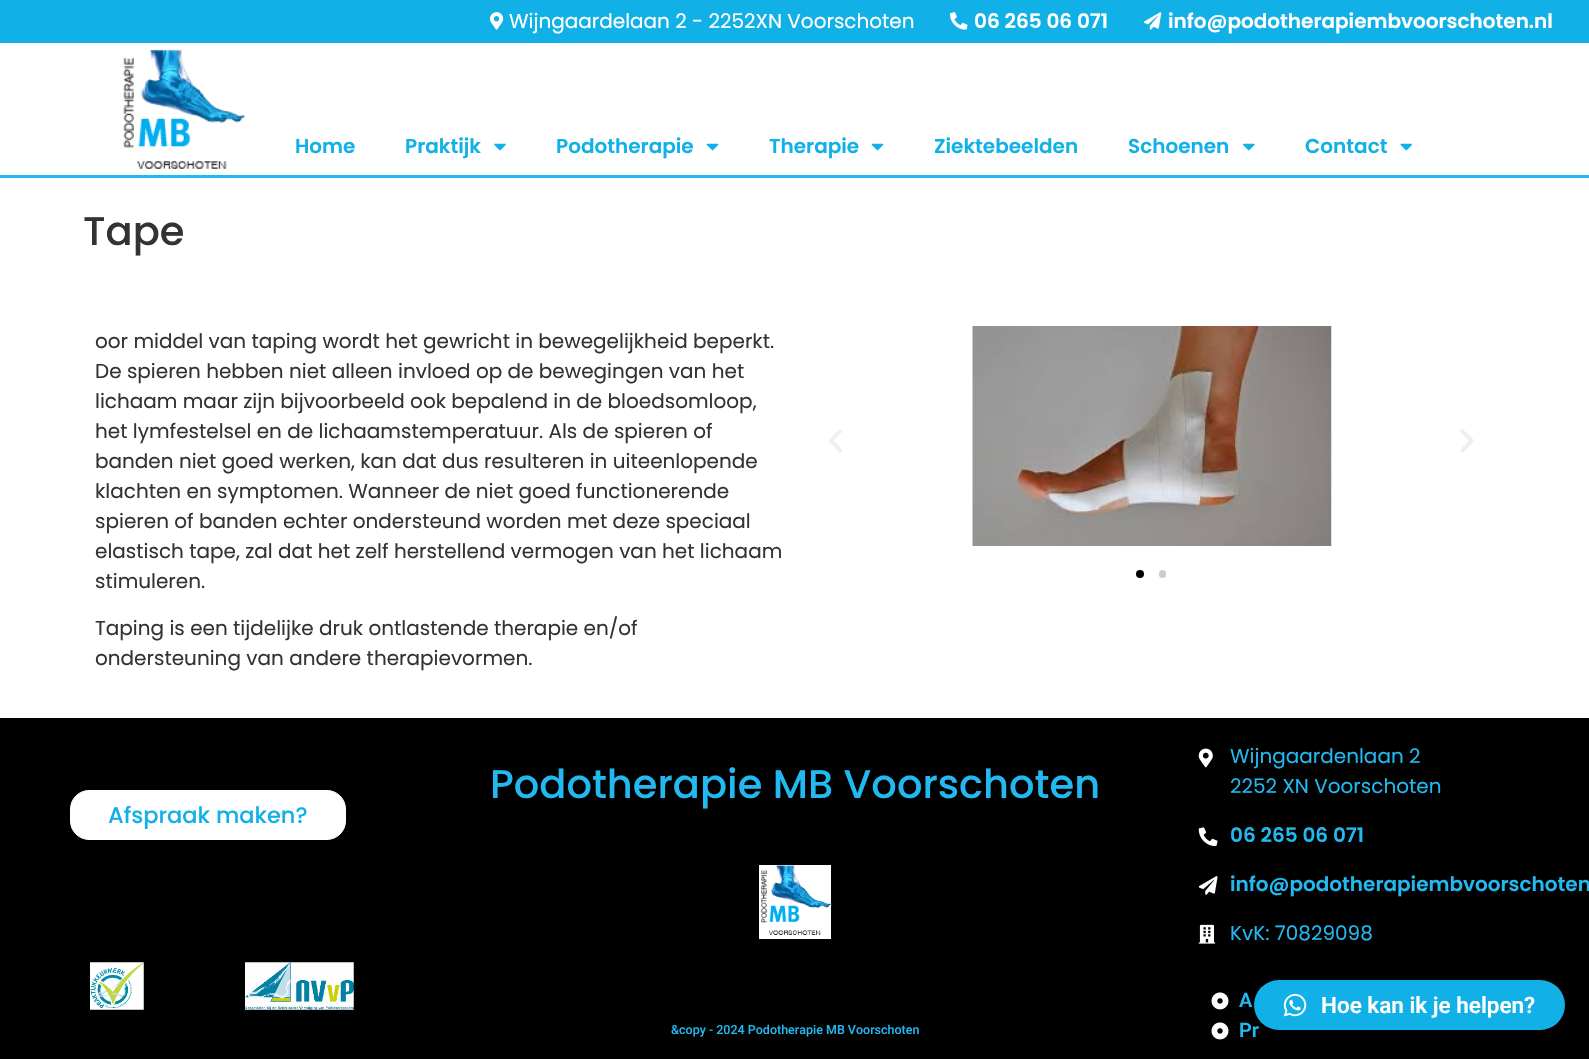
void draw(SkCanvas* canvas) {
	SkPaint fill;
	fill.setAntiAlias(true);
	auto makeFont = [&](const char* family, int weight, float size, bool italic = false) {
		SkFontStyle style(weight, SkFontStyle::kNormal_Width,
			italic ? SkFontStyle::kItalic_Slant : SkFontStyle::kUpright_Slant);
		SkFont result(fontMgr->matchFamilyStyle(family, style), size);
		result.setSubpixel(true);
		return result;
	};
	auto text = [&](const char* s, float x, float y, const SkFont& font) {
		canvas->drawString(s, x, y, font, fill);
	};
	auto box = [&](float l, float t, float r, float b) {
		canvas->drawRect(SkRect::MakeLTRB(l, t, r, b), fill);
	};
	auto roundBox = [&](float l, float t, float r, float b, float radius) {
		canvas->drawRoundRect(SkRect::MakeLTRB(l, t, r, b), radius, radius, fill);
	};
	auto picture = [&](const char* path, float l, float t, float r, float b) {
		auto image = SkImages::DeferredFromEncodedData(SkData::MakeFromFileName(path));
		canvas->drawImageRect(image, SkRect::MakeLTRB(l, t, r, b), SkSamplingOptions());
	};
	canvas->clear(0xFFFFFFFF);
	fill.setColor(0xFF11B1E7);
	box(0, 0, 1589, 43);
	picture("image0.png", 490, 12, 504, 30);
	picture("image1.png", 950, 12, 968, 30);
	picture("image2.png", 1143, 12, 1162, 30);
	fill.setColor(0xFF22B9F1);
	box(0, 175, 1589, 178);
	picture("image3.png", 123, 49, 245, 169);
	picture("image4.png", 494, 143, 506, 151);
	picture("image5.png", 706, 143, 719, 151);
	picture("image5.png", 871, 143, 884, 151);
	picture("image6.png", 1243, 143, 1255, 151);
	picture("image7.png", 1400, 143, 1412, 151);
	picture("image8.png", 829, 429, 842, 453);
	picture("image9.png", 972, 326, 1332, 546);
	picture("image10.png", 1460, 429, 1474, 453);
	fill.setColor(0xFF000000);
	canvas->drawCircle(1140, 574, 4, fill);
	fill.setColor(0xFFCCCCCC);
	roundBox(1159, 570, 1166, 578, 3.5f);
	fill.setColor(0xFF000000);
	box(0, 718, 1589, 1059);
	fill.setColor(0xFFFFFFFF);
	canvas->drawRoundRect(SkRect::MakeLTRB(70.5f, 790.5f, 345.5f, 839.5f), 18.5f, 18.5f, fill);
	fill.setStyle(SkPaint::kStroke_Style);
	fill.setStrokeWidth(1);
	canvas->drawRoundRect(SkRect::MakeLTRB(70.5f, 790.5f, 345.5f, 839.5f), 18.5f, 18.5f, fill);
	picture("image11.png", 90, 962, 144, 1010);
	picture("image12.png", 245, 962, 354, 1010);
	fill.setStyle(SkPaint::kFill_Style);
	box(759, 865, 831, 939);
	picture("image13.png", 761, 865, 832, 935);
	picture("image14.png", 1198, 748, 1213, 768);
	picture("image15.png", 1198, 827, 1218, 847);
	picture("image16.png", 1198, 876, 1218, 895);
	picture("image17.png", 1198, 924, 1216, 944);
	picture("image18.png", 1211, 992, 1229, 1010);
	picture("image18.png", 1211, 1022, 1229, 1040);
	fill.setColor(0x29000000);
	fill.setMaskFilter(SkMaskFilter::MakeBlur(kNormal_SkBlurStyle, 20));
	canvas->drawRoundRect(SkRect::MakeLTRB(1254, 983, 1565, 1033), 25, 25, fill);
	fill.setMaskFilter(nullptr);
	auto font1 = makeFont("Poppins", 400, 20);
	fill.setColor(0xFFFFFFFF);
	text("Wijngaardelaan 2 - 2252XN Voorschoten", 509, 28, font1);
	auto font2 = makeFont("Poppins", 600, 20);
	text("06 265 06 071", 974, 28, font2);
	text("info@podotherapiembvoorschoten.nl", 1168, 28, font2);
	fill.setColor(0xFF11B1E7);
	text("Home", 295, 153, font2);
	text("Praktijk", 405, 153, font2);
	text("Podotherapie", 556, 153, font2);
	text("Therapie", 769, 153, font2);
	text("Ziektebeelden", 934, 153, font2);
	text("Schoenen", 1128, 153, font2);
	text("Contact", 1305, 153, font2);
	auto font3 = makeFont("Poppins", 500, 40);
	fill.setColor(0xFF333333);
	text("Tape", 83, 245, font3);
	text("oor middel van taping wordt het gewricht in bewegelijkheid beperkt.", 95, 348, font1);
	text("De spieren hebben niet alleen invloed op de bewegingen van het", 95, 378, font1);
	text("lichaam maar zijn bijvoorbeeld ook bepalend in de bloedsomloop,", 95, 408, font1);
	text("het lymfestelsel en de lichaamstemperatuur. Als de spieren of", 95, 438, font1);
	text("banden niet goed werken, kan dat dus resulteren in uiteenlopende", 95, 468, font1);
	text("klachten en symptomen. Wanneer de niet goed functionerende", 95, 498, font1);
	text("spieren of banden echter ondersteund worden met deze speciaal", 95, 528, font1);
	text("elastisch tape, zal dat het zelf herstellend vermogen van het lichaam", 95, 558, font1);
	text("stimuleren.", 95, 588, font1);
	text("Taping is een tijdelijke druk ontlastende therapie en/of", 95, 635, font1);
	text("ondersteuning van andere therapievormen.", 95, 665, font1);
	auto font4 = makeFont("Poppins", 500, 22.5f);
	fill.setColor(0xFF11B1E7);
	text("Afspraak maken?", 108, 823, font4);
	fill.setColor(0xFF22B9F1);
	text("Podotherapie MB Voorschoten", 490, 798, font3);
	auto font5 = makeFont("Roboto", 500, 12.5f);
	text("&copy - 2024 Podotherapie MB Voorschoten", 671, 1034, font5);
	text("Wijngaardenlaan 2", 1230, 763, font1);
	text("2252 XN Voorschoten", 1230, 793, font1);
	text("06 265 06 071", 1230, 842, font2);
	text("info@podotherapiembvoorschoten", 1230, 891, font2);
	text("KvK: 70829098", 1230, 940, font1);
	auto font6 = makeFont("Roboto", 600, 20);
	text("A", 1239, 1007, font6);
	text("Pr", 1239, 1037, font6);
	fill.setColor(0xFF11B1E7);
	roundBox(1254, 980, 1565, 1030, 25);
	picture("image19.png", 1283, 993, 1307, 1017);
	auto font7 = makeFont("Roboto", 600, 22.5f);
	fill.setColor(0xFFFFFFFF);
	text("Hoe kan ik je helpen?", 1321, 1013, font7);
}
